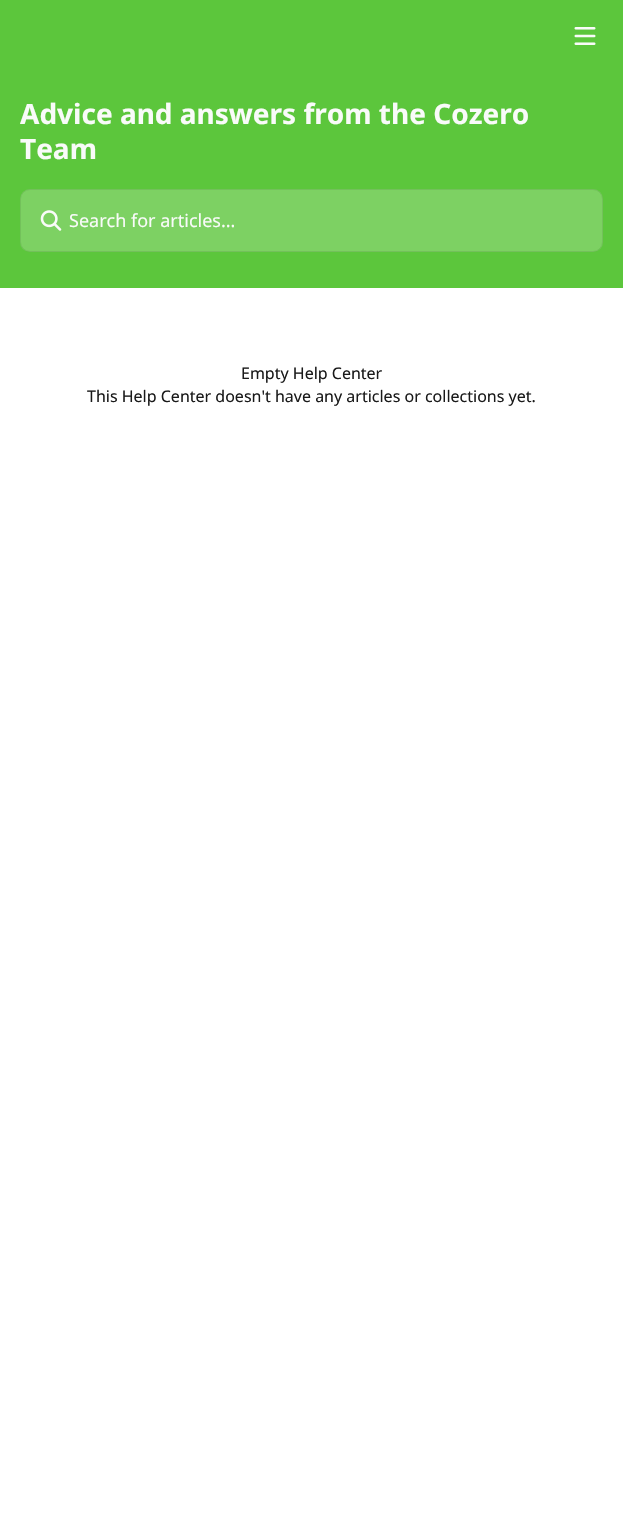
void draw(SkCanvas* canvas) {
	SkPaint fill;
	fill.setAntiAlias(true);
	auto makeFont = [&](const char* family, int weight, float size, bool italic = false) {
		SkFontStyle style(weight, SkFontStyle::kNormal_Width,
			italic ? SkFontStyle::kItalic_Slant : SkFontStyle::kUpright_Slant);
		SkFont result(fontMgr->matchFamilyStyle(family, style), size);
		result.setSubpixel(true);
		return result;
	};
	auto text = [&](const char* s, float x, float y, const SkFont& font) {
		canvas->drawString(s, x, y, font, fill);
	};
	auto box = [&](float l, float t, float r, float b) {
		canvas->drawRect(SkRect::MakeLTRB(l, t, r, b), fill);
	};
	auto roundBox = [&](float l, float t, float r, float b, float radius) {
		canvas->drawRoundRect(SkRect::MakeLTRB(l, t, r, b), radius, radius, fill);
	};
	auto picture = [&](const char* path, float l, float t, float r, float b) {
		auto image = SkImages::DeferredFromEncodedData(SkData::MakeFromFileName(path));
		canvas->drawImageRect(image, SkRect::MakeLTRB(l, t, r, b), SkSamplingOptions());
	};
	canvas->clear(0xFFFFFFFF);
	fill.setColor(0xFF5CC63C);
	box(0, 0, 623, 288);
	picture("image0.png", 574, 27, 596, 45);
	fill.setColor(0x33FFFFFF);
	roundBox(20, 189, 603, 252, 10);
	fill.setStyle(SkPaint::kStroke_Style);
	fill.setStrokeWidth(1);
	fill.setColor(0x14000000);
	canvas->drawRoundRect(SkRect::MakeLTRB(20.5f, 189.5f, 602.5f, 251.5f), 9.5f, 9.5f, fill);
	picture("image1.png", 40, 210, 62, 231);
	auto font1 = makeFont("Noto Sans", 700, 28);
	fill.setStyle(SkPaint::kFill_Style);
	fill.setColor(0xFFF9FBF9);
	text("Advice and answers from the Cozero", 20, 124, font1);
	text("Team", 20, 159, font1);
	auto font2 = makeFont("Noto Sans", 400, 18);
	text("Search for articles...", 69, 227, font2);
	auto font3 = makeFont("Noto Sans", 400, 16);
	fill.setColor(0xFF1A1A1A);
	text("Empty Help Center", 241, 379, font3);
	text("This Help Center doesn't have any articles or collections yet.", 87, 402, font3);
}
